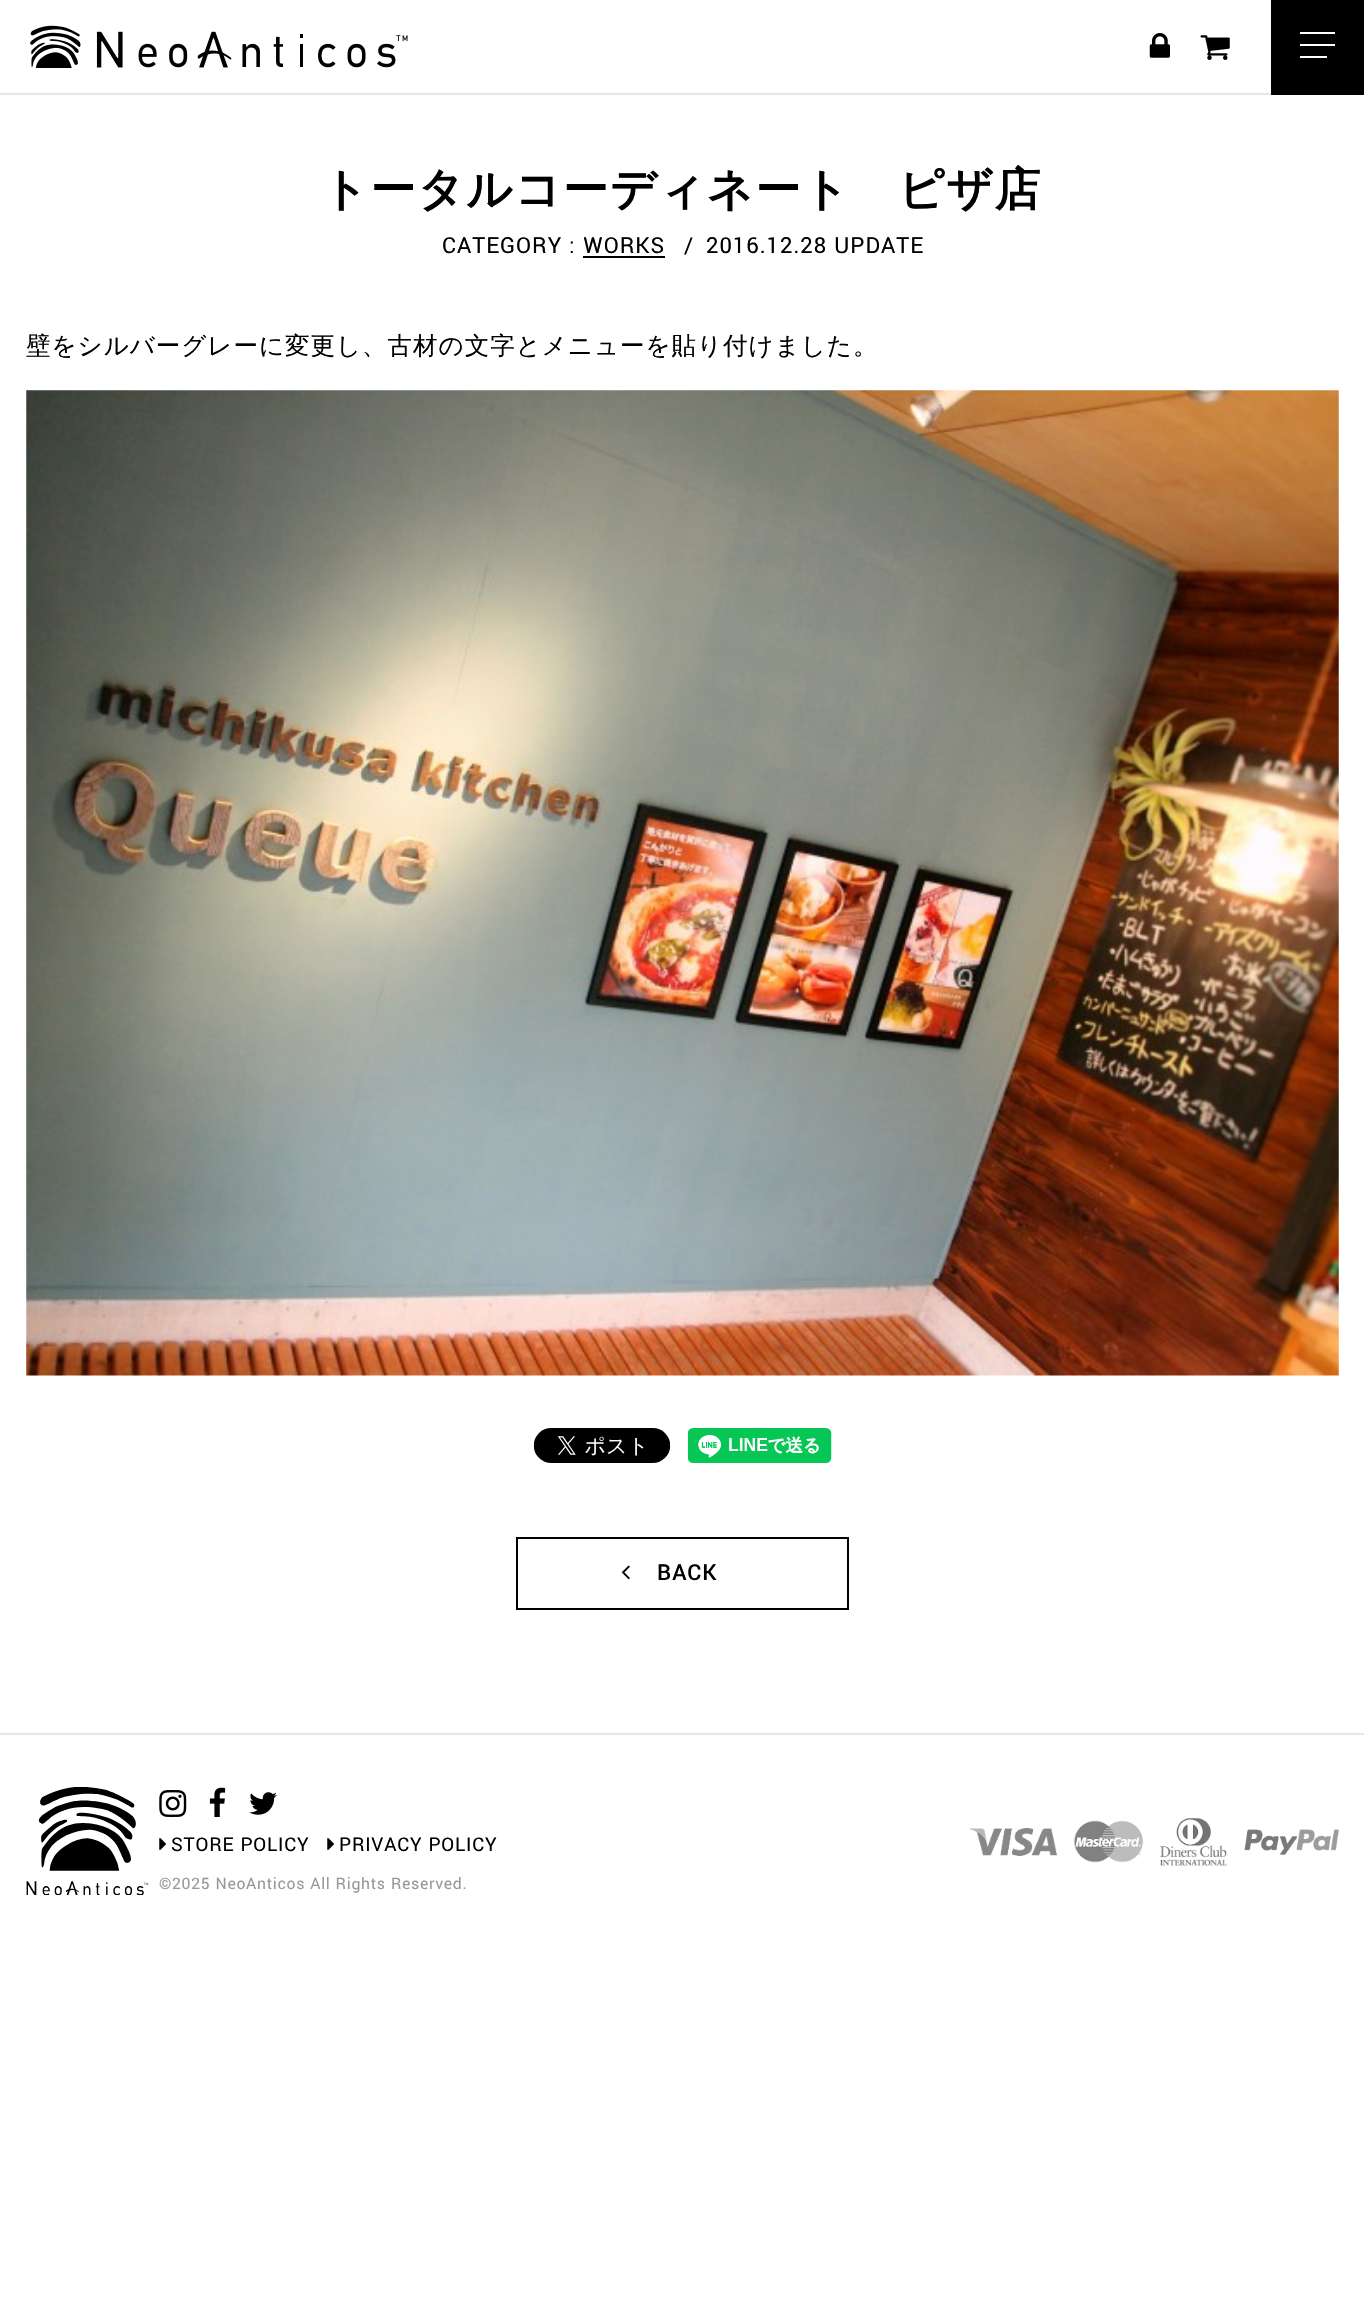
void draw(SkCanvas* canvas) {
	SkPaint fill;
	fill.setAntiAlias(true);
	auto makeFont = [&](const char* family, int weight, float size, bool italic = false) {
		SkFontStyle style(weight, SkFontStyle::kNormal_Width,
			italic ? SkFontStyle::kItalic_Slant : SkFontStyle::kUpright_Slant);
		SkFont result(fontMgr->matchFamilyStyle(family, style), size);
		result.setSubpixel(true);
		return result;
	};
	auto text = [&](const char* s, float x, float y, const SkFont& font) {
		canvas->drawString(s, x, y, font, fill);
	};
	auto spacedText = [&](const char* s, float x, float y, const SkFont& font, const SkPaint& ink, float letter, float word) {
		std::vector<SkGlyphID> glyphs(font.countText(s, strlen(s), SkTextEncoding::kUTF8));
		std::vector<float> xs(glyphs.size());
		font.textToGlyphs(s, strlen(s), SkTextEncoding::kUTF8, glyphs);
		font.getXPos(glyphs, xs, x);
		float extra = 0;
		for (size_t i = 0; i < glyphs.size(); i++) {
			xs[i] += extra;
			extra += letter + word * (glyphs[i] == font.unicharToGlyph(' '));
		}
		canvas->drawTextBlob(SkTextBlob::MakeFromPosHGlyphs(glyphs, xs, y, font), 0, 0, ink);
	};
	auto box = [&](float l, float t, float r, float b) {
		canvas->drawRect(SkRect::MakeLTRB(l, t, r, b), fill);
	};
	auto picture = [&](const char* path, float l, float t, float r, float b) {
		auto image = SkImages::DeferredFromEncodedData(SkData::MakeFromFileName(path));
		canvas->drawImageRect(image, SkRect::MakeLTRB(l, t, r, b), SkSamplingOptions());
	};
	canvas->clear(0xFFFFFFFF);
	fill.setColor(0xFFE7E7E7);
	box(0, 93, 1271, 95);
	picture("image0.png", 30, 25, 408, 68);
	picture("image1.png", 1149, 33, 1170, 58);
	picture("image2.png", 1200, 35, 1230, 60);
	fill.setColor(0xFF000000);
	box(1271, 0, 1364, 95);
	fill.setColor(0xFFFFFFFF);
	box(1300, 44, 1335, 46);
	box(1300, 32, 1335, 34);
	box(1300, 56, 1327, 58);
	fill.setColor(0xFF000000);
	box(583, 256, 665, 258);
	picture("image3.png", 26, 390, 1339, 1376);
	picture("image4.png", 533, 1428, 671, 1463);
	picture("image5.png", 687, 1428, 832, 1463);
	box(516, 1537, 518, 1610);
	box(516, 1537, 849, 1539);
	picture("image6.png", 621, 1565, 630, 1580);
	box(847, 1537, 849, 1610);
	box(516, 1608, 849, 1610);
	fill.setColor(0xFFE7E7E7);
	box(0, 1733, 1364, 1735);
	picture("image7.png", 26, 1787, 149, 1895);
	picture("image8.png", 159, 1790, 187, 1817);
	picture("image9.png", 209, 1787, 226, 1817);
	picture("image10.png", 249, 1792, 277, 1815);
	picture("image11.png", 159, 1838, 166, 1850);
	picture("image11.png", 327, 1838, 334, 1850);
	picture("image12.png", 969, 1828, 1057, 1856);
	picture("image13.png", 1074, 1820, 1143, 1863);
	picture("image14.png", 1160, 1818, 1227, 1866);
	picture("image15.png", 1244, 1829, 1339, 1855);
	auto font1 = makeFont("WenQuanYi Zen Hei", 700, 45.5f);
	fill.setColor(0xFF000000);
	spacedText("トータルコーディネート　ピザ店", 322, 205, font1, fill, 1.8f, 0);
	auto font2 = makeFont("Yantramanav", 400, 24.5f);
	spacedText("CATEGORY : WORKS", 442, 253, font2, fill, 1, 0);
	text("/", 684, 253, font2);
	spacedText("2016.12.28 UPDATE", 706, 253, font2, fill, 1, 0);
	auto font3 = makeFont("WenQuanYi Zen Hei", 500, 24.5f);
	spacedText("壁をシルバーグレーに変更し、古材の文字とメニューを貼り付けました。", 26, 354, font3, fill, 1, 0);
	auto font4 = makeFont("Yantramanav", 500, 24.5f);
	spacedText("BACK", 657, 1580, font4, fill, 1, 0);
	auto font5 = makeFont("Yantramanav", 400, 21);
	spacedText("STORE POLICY", 171, 1851, font5, fill, 0.8f, 0);
	spacedText("PRIVACY POLICY", 339, 1851, font5, fill, 0.8f, 0);
	auto font6 = makeFont("Yantramanav", 400, 17.5f);
	fill.setColor(0xFF999999);
	spacedText("©2025 NeoAnticos All Rights Reserved.", 159, 1889, font6, fill, 0.7f, 0);
}
